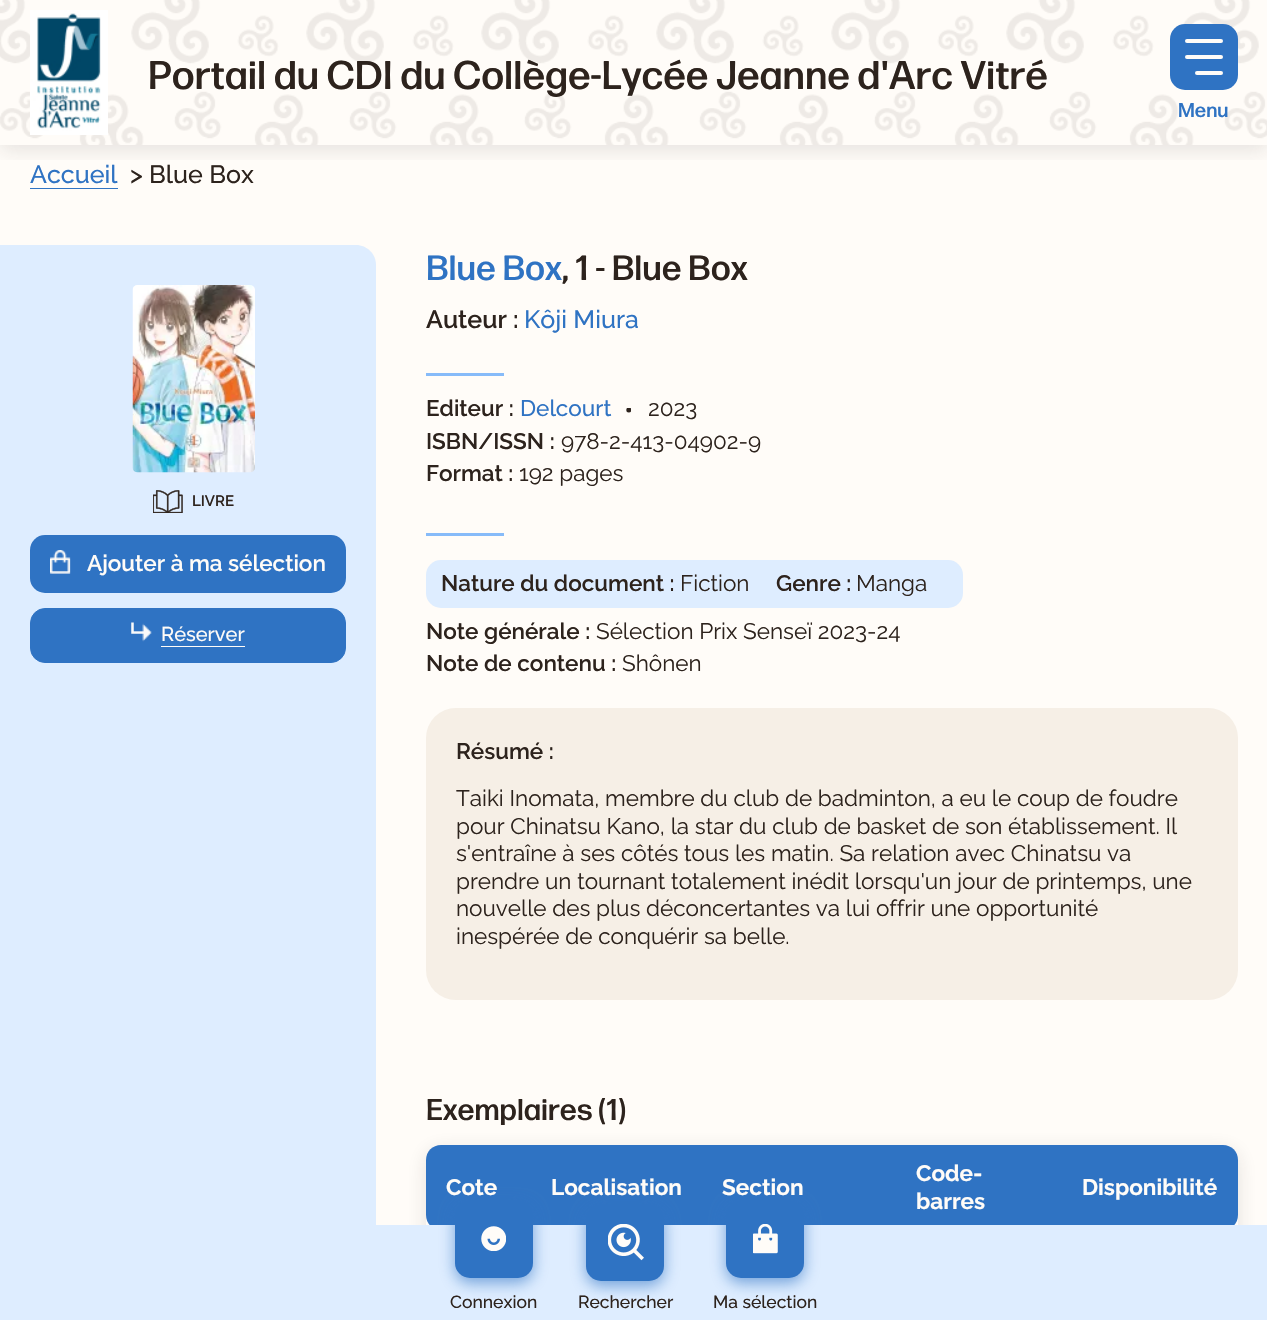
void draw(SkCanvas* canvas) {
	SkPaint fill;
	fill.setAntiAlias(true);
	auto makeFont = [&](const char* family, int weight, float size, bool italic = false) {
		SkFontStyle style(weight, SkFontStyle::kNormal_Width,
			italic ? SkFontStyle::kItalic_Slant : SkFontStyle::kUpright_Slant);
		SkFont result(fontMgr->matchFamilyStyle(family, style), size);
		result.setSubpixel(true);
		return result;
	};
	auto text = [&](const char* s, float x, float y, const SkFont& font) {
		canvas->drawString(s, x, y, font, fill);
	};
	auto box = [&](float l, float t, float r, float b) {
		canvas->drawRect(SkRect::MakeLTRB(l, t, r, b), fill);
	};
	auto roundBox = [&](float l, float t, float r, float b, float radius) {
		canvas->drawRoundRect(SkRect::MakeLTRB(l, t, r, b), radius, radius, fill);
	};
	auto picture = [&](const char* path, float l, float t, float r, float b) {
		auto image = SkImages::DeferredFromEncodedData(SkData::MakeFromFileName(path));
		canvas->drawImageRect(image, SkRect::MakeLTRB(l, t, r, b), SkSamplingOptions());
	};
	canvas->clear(0xFFFFFCF8);
	canvas->save();
	canvas->clipRect(SkRect::MakeLTRB(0, 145, 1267, 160));
	fill.setColor(0x1F2D231D);
	fill.setMaskFilter(SkMaskFilter::MakeBlur(kNormal_SkBlurStyle, 10));
	canvas->drawRect(SkRect::MakeLTRB(0, 5, 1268, 150), fill);
	fill.setMaskFilter(nullptr);
	canvas->restore();
	picture("image0.png", 0, 0, 1267, 145);
	picture("image1.png", 30, 10, 108, 135);
	fill.setColor(0xFF2F73C3);
	roundBox(1170, 24, 1238, 90, 15);
	fill.setColor(0xFFFFFCF8);
	roundBox(1185, 39, 1223, 43, 2);
	roundBox(1185, 55, 1223, 59, 2);
	roundBox(1195, 71, 1223, 75, 2);
	fill.setColor(0xFFDEEDFF);
	canvas->drawPath(SkPathBuilder().moveTo(30, 245).lineTo(356, 245).cubicTo(367, 245, 376, 254, 376, 265).lineTo(376, 1314).cubicTo(376, 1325, 367, 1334, 356, 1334).lineTo(30, 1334).close().detach(), fill);
	canvas->save();
	canvas->clipPath(SkPathBuilder(SkPathFillType::kEvenOdd).moveTo(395, 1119).lineTo(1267, 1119).lineTo(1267, 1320).lineTo(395, 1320).close().moveTo(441, 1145).lineTo(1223, 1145).cubicTo(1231.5f, 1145, 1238, 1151.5f, 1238, 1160).lineTo(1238, 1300).cubicTo(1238, 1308.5f, 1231.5f, 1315, 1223, 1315).lineTo(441, 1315).cubicTo(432.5f, 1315, 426, 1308.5f, 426, 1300).lineTo(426, 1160).cubicTo(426, 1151.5f, 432.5f, 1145, 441, 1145).close().detach(), true);
	fill.setColor(0x1F2D231D);
	fill.setMaskFilter(SkMaskFilter::MakeBlur(kNormal_SkBlurStyle, 10));
	canvas->drawRoundRect(SkRect::MakeLTRB(426, 1150, 1238, 1320), 15, 15, fill);
	fill.setMaskFilter(nullptr);
	canvas->restore();
	fill.setColor(0xFF2F73C3);
	canvas->drawPath(SkPathBuilder().moveTo(441, 1145).lineTo(531, 1145).lineTo(531, 1230).lineTo(441, 1230).cubicTo(432.5f, 1230, 426, 1223.5f, 426, 1215).lineTo(426, 1160).cubicTo(426, 1151.5f, 432.5f, 1145, 441, 1145).close().detach(), fill);
	canvas->drawPath(SkPathBuilder().moveTo(1063, 1145).lineTo(1223, 1145).cubicTo(1231.5f, 1145, 1238, 1151.5f, 1238, 1160).lineTo(1238, 1215).cubicTo(1238, 1223.5f, 1231.5f, 1230, 1223, 1230).lineTo(1063, 1230).close().detach(), fill);
	fill.setColor(0xFFDEEDFF);
	box(0, 1225, 1267, 1320);
	fill.setColor(0xFF2F73C3);
	box(531, 1145, 1063, 1225);
	fill.setColor(0x9E2F73C3);
	fill.setMaskFilter(SkMaskFilter::MakeBlur(kNormal_SkBlurStyle, 7.5f));
	canvas->drawRoundRect(SkRect::MakeLTRB(455, 1205, 533, 1283), 15, 15, fill);
	fill.setMaskFilter(nullptr);
	fill.setColor(0xFF2F73C3);
	roundBox(455, 1200, 533, 1278, 15);
	picture("image2.png", 481, 1226, 506, 1251);
	fill.setColor(0x9E2F73C3);
	fill.setMaskFilter(SkMaskFilter::MakeBlur(kNormal_SkBlurStyle, 7.5f));
	canvas->drawRoundRect(SkRect::MakeLTRB(586, 1209, 664, 1286), 15, 15, fill);
	fill.setMaskFilter(nullptr);
	fill.setColor(0xFF2F73C3);
	roundBox(586, 1204, 664, 1281, 15);
	picture("image3.png", 608, 1224, 644, 1261);
	fill.setColor(0x9E2F73C3);
	fill.setMaskFilter(SkMaskFilter::MakeBlur(kNormal_SkBlurStyle, 7.5f));
	canvas->drawRoundRect(SkRect::MakeLTRB(726, 1205, 804, 1283), 15, 15, fill);
	fill.setMaskFilter(nullptr);
	fill.setColor(0xFF2F73C3);
	roundBox(726, 1200, 804, 1278, 15);
	picture("image4.png", 753, 1224, 778, 1254);
	box(30, 188, 118, 189);
	fill.setColor(0xFFDEEDFF);
	box(0, 245, 30, 1225);
	picture("image5.png", 132, 285, 255, 473);
	picture("image6.png", 153, 490, 183, 513);
	fill.setColor(0xFF2F73C3);
	roundBox(30, 535, 346, 593, 15);
	picture("image7.png", 50, 550, 71, 574);
	canvas->drawRoundRect(SkRect::MakeLTRB(30.5f, 608.5f, 345.5f, 662.5f), 14.5f, 14.5f, fill);
	fill.setStyle(SkPaint::kStroke_Style);
	fill.setStrokeWidth(1);
	canvas->drawRoundRect(SkRect::MakeLTRB(30.5f, 608.5f, 345.5f, 662.5f), 14.5f, 14.5f, fill);
	picture("image8.png", 131, 622, 152, 642);
	fill.setStyle(SkPaint::kFill_Style);
	fill.setColor(0xFFFFFCF8);
	box(161, 646, 245, 647);
	fill.setColor(0xFF87BBF9);
	box(426, 373, 504, 376);
	canvas->save();
	canvas->clipRect(SkRect::MakeLTRB(626, 408, 631, 413));
	fill.setColor(0xFF2D231D);
	canvas->drawCircle(628.8f, 410, 2.5f, fill);
	canvas->restore();
	fill.setColor(0xFF87BBF9);
	box(426, 533, 504, 536);
	fill.setColor(0xFFDEEDFF);
	roundBox(426, 560, 963, 608, 15);
	fill.setColor(0xFFF6EFE6);
	roundBox(426, 708, 1238, 1000, 30);
	auto font1 = makeFont("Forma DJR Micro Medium", 500, 40);
	fill.setColor(0xFF2D231D);
	text("Portail du CDI du Collège-Lycée Jeanne d'Arc Vitré", 148, 89, font1);
	auto font2 = makeFont("Forma DJR Micro Medium", 500, 20);
	fill.setColor(0xFF2F73C3);
	text("Menu", 1178, 117, font2);
	auto font3 = makeFont("Raleway", 500, 17.5f);
	fill.setColor(0xFF2D231D);
	text("Connexion", 450, 1308, font3);
	text("Rechercher", 578, 1308, font3);
	text("Ma sélection", 713, 1308, font3);
	auto font4 = makeFont("Raleway", 500, 25);
	fill.setColor(0xFF2F73C3);
	text("Accueil", 30, 183, font4);
	fill.setColor(0xFF2D231D);
	text("> Blue Box", 130, 183, font4);
	auto font5 = makeFont("Raleway", 600, 15);
	text("LIVRE", 192, 506, font5);
	auto font6 = makeFont("Raleway", 600, 22.5f);
	fill.setColor(0xFFFFFCF8);
	text("Ajouter à ma sélection", 87, 571, font6);
	auto font7 = makeFont("Raleway", 500, 20);
	text("Réserver", 161, 641, font7);
	auto font8 = makeFont("Forma DJR Micro Medium", 500, 35);
	fill.setColor(0xFF2F73C3);
	text("Blue Box", 426, 280, font8);
	fill.setColor(0xFF2D231D);
	text(", 1 - Blue Box", 562, 280, font8);
	auto font9 = makeFont("Raleway", 600, 25);
	text("Auteur :", 426, 328, font9);
	fill.setColor(0xFF2F73C3);
	text("Kôji Miura", 524, 328, font4);
	fill.setColor(0xFF2D231D);
	text("Editeur :", 426, 416, font6);
	auto font10 = makeFont("Raleway", 500, 22.5f);
	fill.setColor(0xFF2F73C3);
	text("Delcourt", 520, 416, font10);
	auto font11 = makeFont("Raleway", 400, 22.5f);
	fill.setColor(0xFF2D231D);
	text("2023", 648, 416, font11);
	text("ISBN/ISSN :", 426, 449, font6);
	text("978-2-413-04902-9", 561, 449, font11);
	text("Format :", 426, 481, font6);
	text("192 pages", 519, 481, font11);
	text("Nature du document :", 441, 591, font6);
	text("Fiction", 680, 591, font11);
	text("Genre :", 776, 591, font6);
	text("Manga", 856, 591, font11);
	text("Note générale :", 426, 639, font6);
	text("Sélection Prix Senseï 2023-24", 596, 639, font11);
	text("Note de contenu :", 426, 671, font6);
	text("Shônen", 622, 671, font11);
	text("Résumé :", 456, 759, font6);
	text("Taiki Inomata, membre du club de badminton, a eu le coup de foudre", 456, 806, font11);
	text("pour Chinatsu Kano, la star du club de basket de son établissement. Il", 456, 834, font11);
	text("s'entraîne à ses côtés tous les matin. Sa relation avec Chinatsu va", 456, 861, font11);
	text("prendre un tournant totalement inédit lorsqu'un jour de printemps, une", 456, 889, font11);
	text("nouvelle des plus déconcertantes va lui offrir une opportunité", 456, 916, font11);
	text("inespérée de conquérir sa belle.", 456, 944, font11);
	auto font12 = makeFont("Forma DJR Micro Medium", 500, 30);
	text("Exemplaires (1)", 426, 1120, font12);
	auto font13 = makeFont("Raleway", 700, 22.5f);
	fill.setColor(0xFFFFFCF8);
	text("Cote", 446, 1195, font13);
	text("Localisation", 551, 1195, font13);
	text("Section", 722, 1195, font13);
	text("Code-", 916, 1181, font13);
	text("barres", 916, 1209, font13);
	text("Disponibilité", 1082, 1195, font13);
}
